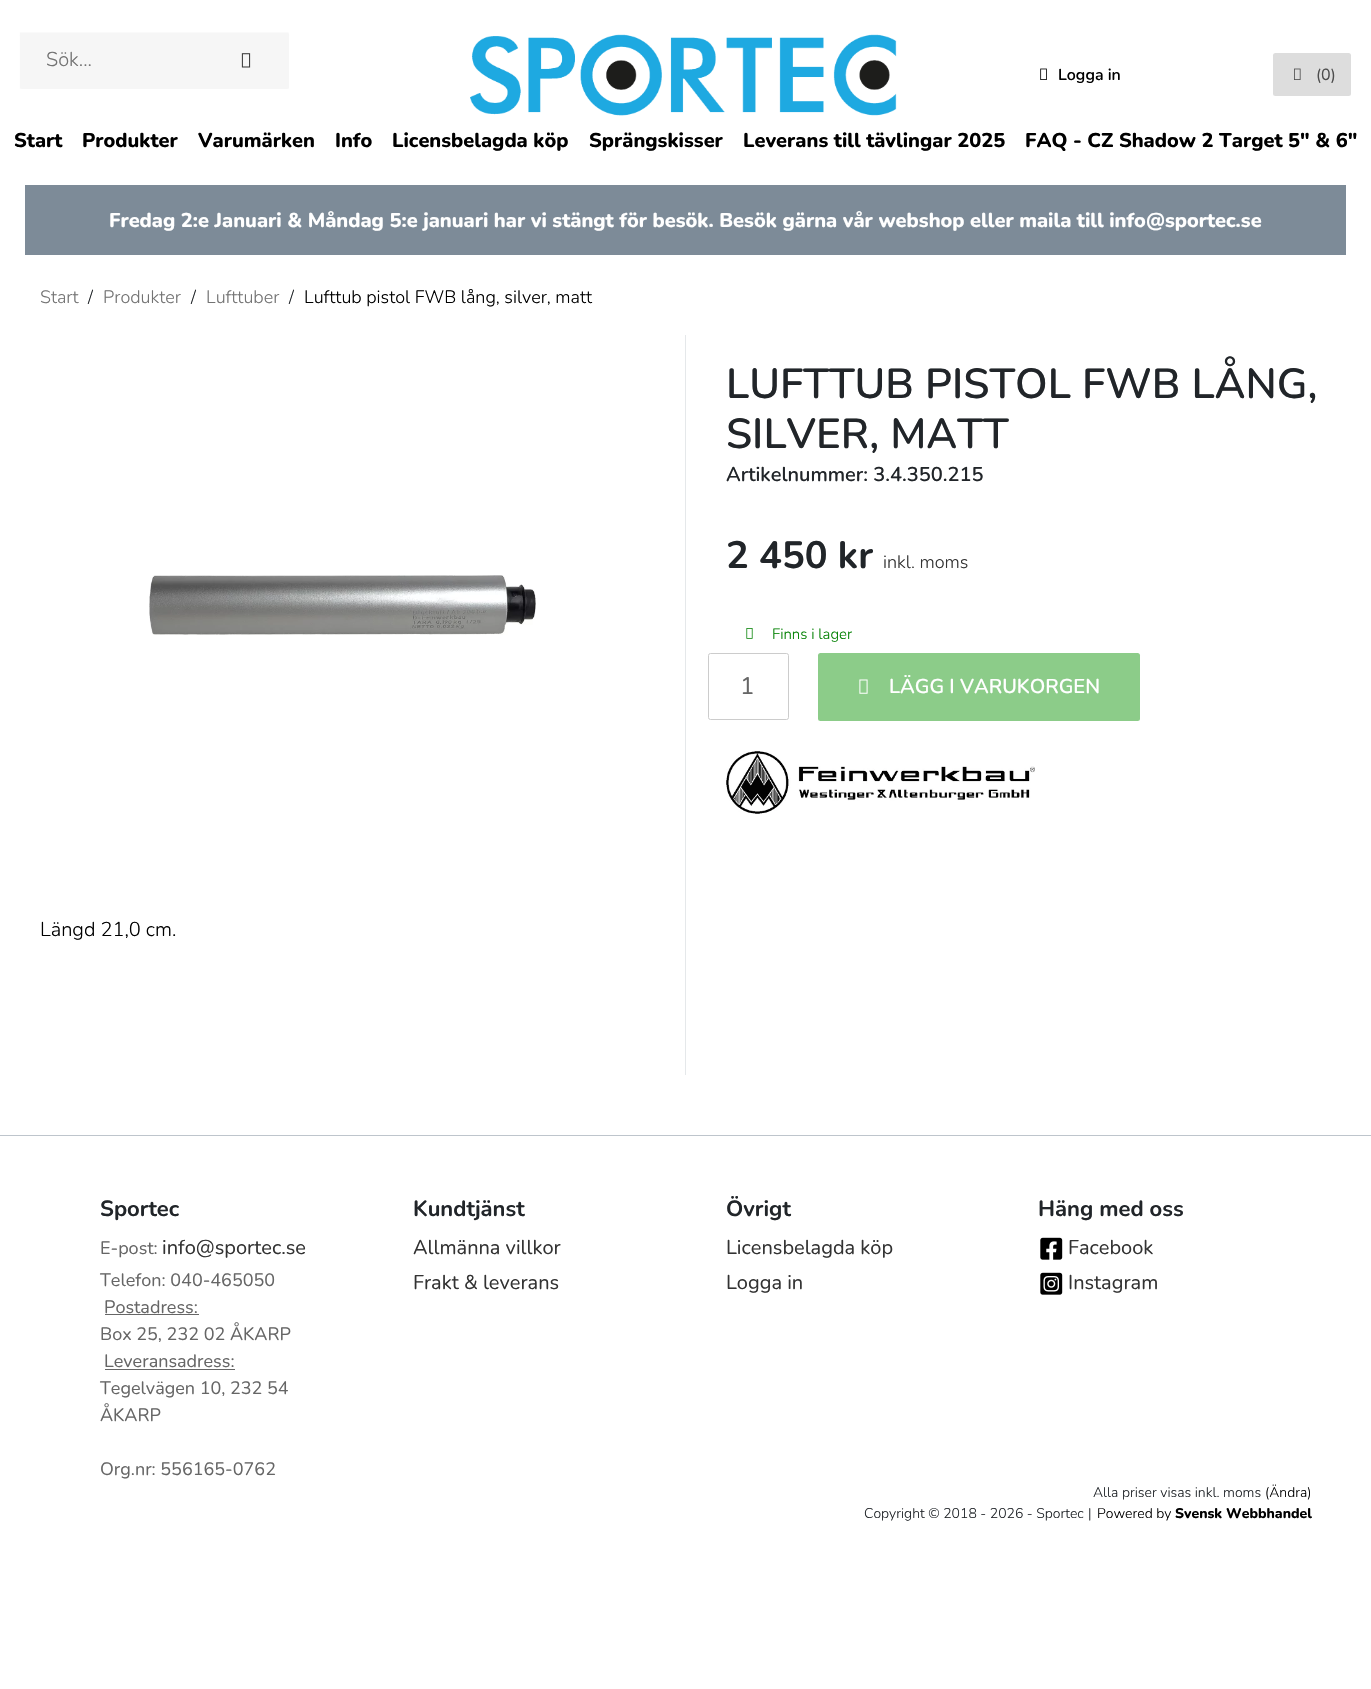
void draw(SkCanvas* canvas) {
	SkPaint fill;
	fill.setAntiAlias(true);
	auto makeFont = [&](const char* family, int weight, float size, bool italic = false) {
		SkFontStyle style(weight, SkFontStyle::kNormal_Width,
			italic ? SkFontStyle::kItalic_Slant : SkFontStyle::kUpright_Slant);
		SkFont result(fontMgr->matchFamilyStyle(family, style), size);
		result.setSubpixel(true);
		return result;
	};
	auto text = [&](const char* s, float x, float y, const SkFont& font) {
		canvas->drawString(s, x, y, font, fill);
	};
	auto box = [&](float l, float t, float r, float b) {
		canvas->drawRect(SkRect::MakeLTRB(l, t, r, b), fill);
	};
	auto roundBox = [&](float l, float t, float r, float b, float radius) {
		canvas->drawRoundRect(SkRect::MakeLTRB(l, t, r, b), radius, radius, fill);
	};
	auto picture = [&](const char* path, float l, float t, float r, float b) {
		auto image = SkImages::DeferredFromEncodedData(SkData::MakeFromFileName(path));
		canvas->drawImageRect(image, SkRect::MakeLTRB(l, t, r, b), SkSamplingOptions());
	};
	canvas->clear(0xFFFFFFFF);
	fill.setColor(0xFFF6F6F6);
	roundBox(20, 33, 289, 89, 2.5f);
	fill.setStyle(SkPaint::kStroke_Style);
	fill.setStrokeWidth(6.2f);
	canvas->drawPath(SkPathBuilder().moveTo(23, 35.5f).lineTo(285.5f, 35.5f).lineTo(285.5f, 85.5f).lineTo(23, 85.5f).close().detach(), fill);
	picture("image0.png", 241, 53, 251, 68);
	picture("image1.png", 470, 34, 897, 116);
	picture("image2.png", 1040, 68, 1047, 80);
	fill.setStyle(SkPaint::kFill_Style);
	fill.setColor(0xFFDDDDDD);
	roundBox(1273, 53, 1351, 96, 2.5f);
	picture("image3.png", 1294, 68, 1301, 80);
	fill.setColor(0xFF7D8B98);
	box(25, 185, 1346, 255);
	picture("image4.png", 149, 575, 536, 635);
	fill.setColor(0xFFE5E8EA);
	box(685, 335, 686, 1075);
	picture("image5.png", 746, 628, 753, 639);
	fill.setStyle(SkPaint::kStroke_Style);
	fill.setStrokeWidth(1);
	fill.setColor(0xFFCCCCCC);
	canvas->drawRoundRect(SkRect::MakeLTRB(708.5f, 653.5f, 788.5f, 719.5f), 2, 2, fill);
	fill.setStyle(SkPaint::kFill_Style);
	fill.setColor(0xFF8CCC89);
	roundBox(818, 653, 1140, 721, 2.5f);
	picture("image6.png", 859, 679, 868, 694);
	picture("image7.png", 726, 751, 1035, 814);
	fill.setColor(0xFFBEC5CC);
	box(0, 1135, 1371, 1136);
	fill.setColor(0xFF666666);
	box(105, 1314, 199, 1315);
	box(105, 1369, 235, 1370);
	picture("image8.png", 1040, 1237, 1063, 1260);
	picture("image9.png", 1040, 1272, 1063, 1295);
	auto font1 = makeFont("Nunito", 200, 20);
	fill.setColor(0xFF737373);
	text("Sök...", 46, 66, font1);
	auto font2 = makeFont("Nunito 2", 200, 16);
	fill.setColor(0xFF000000);
	text("Logga in", 1058, 80, font2);
	auto font3 = makeFont("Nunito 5", 200, 16);
	fill.setColor(0xFF4D4D4D);
	text("(0)", 1316, 80, font3);
	auto font4 = makeFont("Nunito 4", 200, 20);
	fill.setColor(0xFF000000);
	text("Start", 14, 147, font4);
	text("Produkter", 82, 147, font4);
	text("Varumärken", 198, 147, font4);
	text("Info", 335, 147, font4);
	text("Licensbelagda köp", 392, 147, font4);
	text("Sprängskisser", 589, 147, font4);
	text("Leverans till tävlingar 2025", 743, 147, font4);
	text("FAQ - CZ Shadow 2 Target 5\" & 6\"", 1025, 147, font4);
	fill.setColor(0xFFFFFFFF);
	text("Fredag 2:e Januari & Måndag 5:e januari har vi stängt för besök. Besök gärna vår webshop eller maila till info@sportec.se", 109, 227, font4);
	auto font5 = makeFont("Nunito", 200, 18);
	fill.setColor(0xFF737373);
	text("Start", 40, 303, font5);
	fill.setColor(0xFF212529);
	text("/", 88, 303, font5);
	fill.setColor(0xFF737373);
	text("Produkter", 103, 303, font5);
	fill.setColor(0xFF212529);
	text("/", 191, 303, font5);
	fill.setColor(0xFF737373);
	text("Lufttuber", 206, 303, font5);
	fill.setColor(0xFF212529);
	text("/", 289, 303, font5);
	fill.setColor(0xFF000000);
	text("Lufttub pistol FWB lång, silver, matt", 304, 303, font5);
	auto font6 = makeFont("Nunito 2", 200, 42);
	fill.setColor(0xFF212529);
	text("LUFTTUB PISTOL FWB LÅNG,", 726, 398, font6);
	text("SILVER, MATT", 726, 448, font6);
	auto font7 = makeFont("Nunito 2", 200, 20);
	text("Artikelnummer: 3.4.350.215", 726, 481, font7);
	auto font8 = makeFont("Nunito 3", 200, 38);
	text("2 450 kr", 726, 568, font8);
	fill.setColor(0xFF333333);
	text("inkl. moms", 883, 568, font5);
	auto font9 = makeFont("Nunito", 200, 15);
	fill.setColor(0xFF008000);
	text("Finns i lager", 772, 639, font9);
	auto font10 = makeFont("Nunito 5", 200, 24);
	fill.setColor(0xFF666666);
	text("1", 740, 694, font10);
	fill.setColor(0xFFFFFFFF);
	text("LÄGG I VARUKORGEN", 889, 693, font7);
	fill.setColor(0xFF000000);
	text("Längd 21,0 cm.", 40, 936, font1);
	auto font11 = makeFont("Nunito 3", 200, 22);
	fill.setColor(0xFF212529);
	text("Sportec", 100, 1216, font11);
	auto font12 = makeFont("Nunito 5", 200, 18);
	fill.setColor(0xFF666666);
	text("E-post:", 100, 1254, font12);
	auto font13 = makeFont("Nunito 5", 200, 20);
	fill.setColor(0xFF333333);
	text("info@sportec.se", 162, 1254, font13);
	fill.setColor(0xFF666666);
	text("Telefon: 040-465050", 100, 1286, font12);
	text("Postadress:", 104, 1313, font12);
	text("Box 25, 232 02 ÅKARP", 100, 1340, font12);
	text("Leveransadress:", 104, 1367, font12);
	text("Tegelvägen 10, 232 54", 100, 1394, font12);
	text("ÅKARP", 100, 1421, font12);
	text("Org.nr: 556165-0762", 100, 1475, font12);
	fill.setColor(0xFF212529);
	text("Kundtjänst", 413, 1216, font11);
	fill.setColor(0xFF333333);
	text("Allmänna villkor", 413, 1254, font13);
	text("Frakt & leverans", 413, 1289, font13);
	fill.setColor(0xFF212529);
	text("Övrigt", 726, 1216, font11);
	fill.setColor(0xFF333333);
	text("Licensbelagda köp", 726, 1254, font13);
	text("Logga in", 726, 1289, font13);
	fill.setColor(0xFF212529);
	text("Häng med oss", 1038, 1216, font11);
	fill.setColor(0xFF333333);
	text("Facebook", 1068, 1254, font13);
	text("Instagram", 1068, 1289, font13);
	auto font14 = makeFont("Nunito", 200, 14);
	fill.setColor(0xFF212529);
	text("Alla priser visas inkl. moms", 1093, 1497, font14);
	fill.setColor(0xFF000000);
	text("(Ändra)", 1265, 1497, font14);
	fill.setColor(0xFF212529);
	text("Copyright © 2018 - 2026 - Sportec", 864, 1518, font14);
	text("|", 1088, 1518, font14);
	fill.setColor(0xFF000000);
	text("Powered by", 1097, 1518, font14);
	auto font15 = makeFont("Nunito 4", 200, 14);
	text("Svensk Webbhandel", 1175, 1518, font15);
}
